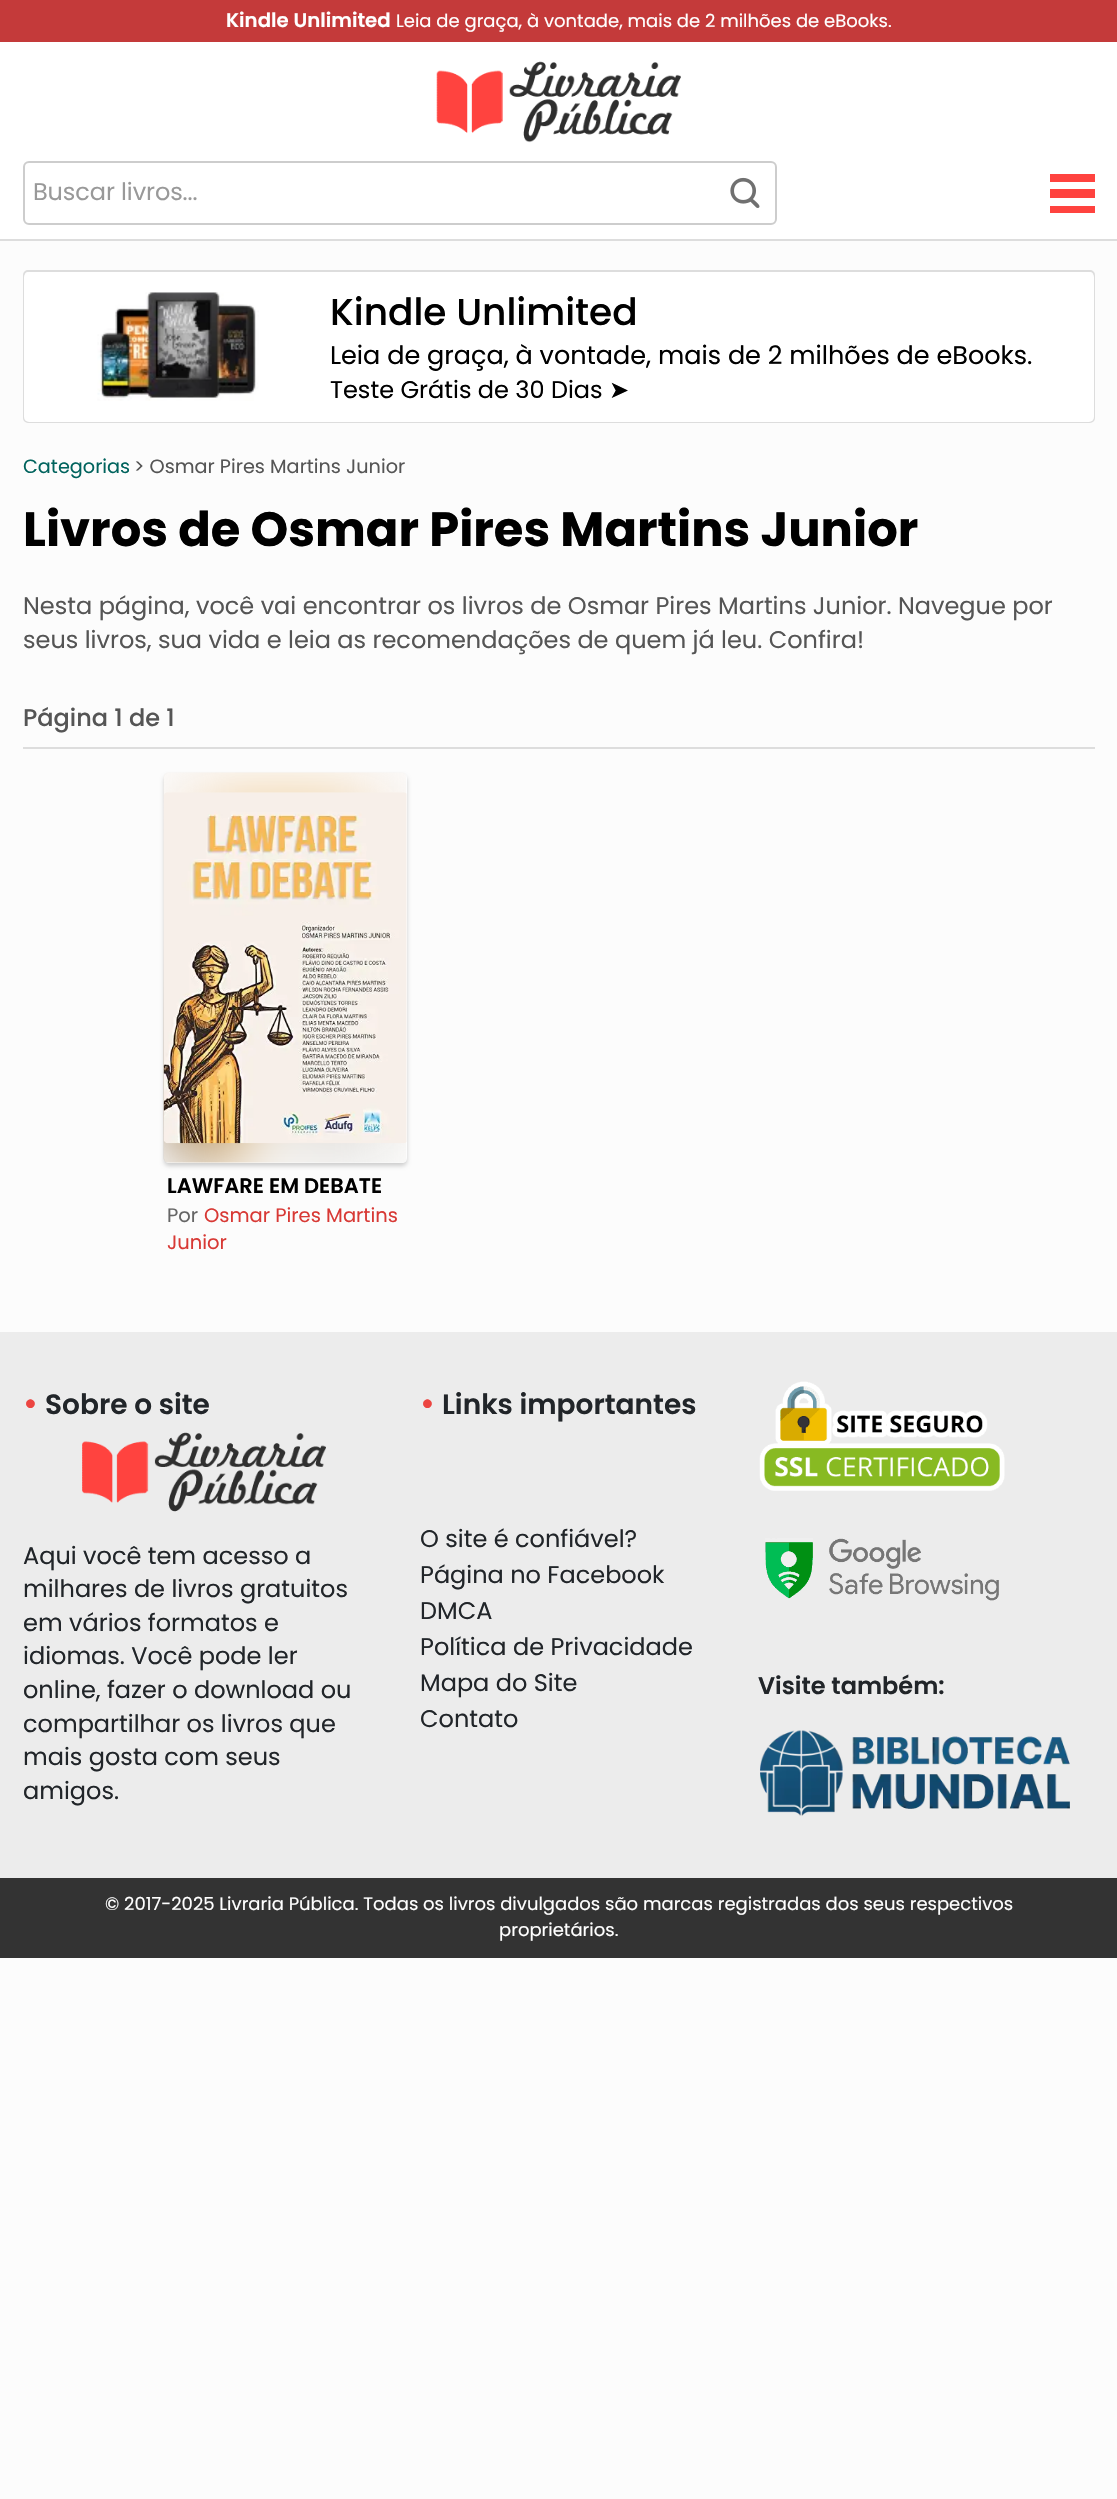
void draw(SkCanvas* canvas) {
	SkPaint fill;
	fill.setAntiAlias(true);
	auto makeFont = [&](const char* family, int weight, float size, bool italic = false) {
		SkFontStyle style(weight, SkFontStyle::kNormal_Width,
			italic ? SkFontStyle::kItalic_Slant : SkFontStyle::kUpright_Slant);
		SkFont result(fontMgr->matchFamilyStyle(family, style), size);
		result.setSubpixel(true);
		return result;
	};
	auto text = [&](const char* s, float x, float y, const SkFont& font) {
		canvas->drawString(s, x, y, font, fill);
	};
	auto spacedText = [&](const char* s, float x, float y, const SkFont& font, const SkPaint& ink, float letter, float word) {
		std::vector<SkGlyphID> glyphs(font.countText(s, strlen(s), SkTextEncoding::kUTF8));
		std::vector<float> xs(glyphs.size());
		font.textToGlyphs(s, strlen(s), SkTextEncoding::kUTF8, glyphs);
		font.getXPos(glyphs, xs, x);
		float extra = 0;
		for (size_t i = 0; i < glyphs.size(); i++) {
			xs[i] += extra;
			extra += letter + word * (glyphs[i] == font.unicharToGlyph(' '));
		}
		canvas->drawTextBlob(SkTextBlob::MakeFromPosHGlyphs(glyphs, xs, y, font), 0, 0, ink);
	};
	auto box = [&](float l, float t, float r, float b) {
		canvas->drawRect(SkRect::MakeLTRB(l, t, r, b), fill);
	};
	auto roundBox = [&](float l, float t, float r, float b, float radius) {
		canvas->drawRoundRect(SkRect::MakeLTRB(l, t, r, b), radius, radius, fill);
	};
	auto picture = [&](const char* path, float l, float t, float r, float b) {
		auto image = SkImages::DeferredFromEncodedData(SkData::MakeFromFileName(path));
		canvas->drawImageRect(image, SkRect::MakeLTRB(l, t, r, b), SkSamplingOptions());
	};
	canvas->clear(0xFFFCFCFC);
	fill.setColor(0xFFC43A3A);
	box(0, 0, 1117, 42);
	fill.setColor(0xFFFFFFFF);
	box(0, 42, 1117, 239);
	fill.setColor(0xFFDDDDDD);
	box(0, 239, 1117, 241);
	picture("image0.png", 436, 61, 681, 143);
	fill.setStyle(SkPaint::kStroke_Style);
	fill.setStrokeWidth(2);
	fill.setColor(0xFFCDCDCD);
	canvas->drawRoundRect(SkRect::MakeLTRB(24, 162, 776, 224), 5, 5, fill);
	picture("image1.png", 730, 177, 760, 208);
	fill.setStyle(SkPaint::kFill_Style);
	fill.setColor(0xFFFF433F);
	box(1050, 174, 1095, 182);
	box(1050, 189, 1095, 198);
	box(1050, 206, 1095, 213);
	fill.setStyle(SkPaint::kStroke_Style);
	fill.setColor(0xFFDDDDDD);
	canvas->drawRoundRect(SkRect::MakeLTRB(24, 271, 1094, 422), 4, 4, fill);
	fill.setStyle(SkPaint::kFill_Style);
	fill.setColor(0xFFFFFFFF);
	roundBox(24, 272, 1094, 422, 5);
	picture("image2.png", 97, 292, 259, 401);
	fill.setColor(0xFFDDDDDD);
	box(23, 747, 1095, 749);
	canvas->save();
	canvas->clipPath(SkPathBuilder(SkPathFillType::kEvenOdd).moveTo(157, 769).lineTo(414, 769).lineTo(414, 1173).lineTo(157, 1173).close().moveTo(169, 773).lineTo(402, 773).cubicTo(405, 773, 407, 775, 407, 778).lineTo(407, 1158).cubicTo(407, 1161, 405, 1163, 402, 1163).lineTo(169, 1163).cubicTo(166, 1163, 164, 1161, 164, 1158).lineTo(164, 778).cubicTo(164, 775, 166, 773, 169, 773).close().detach(), true);
	fill.setColor(0x2E000000);
	fill.setMaskFilter(SkMaskFilter::MakeBlur(kNormal_SkBlurStyle, 2));
	canvas->drawRoundRect(SkRect::MakeLTRB(164, 776, 407, 1166), 5, 5, fill);
	fill.setMaskFilter(nullptr);
	canvas->restore();
	picture("image3.png", 163, 772, 406, 1163);
	picture("image4.png", 163, 792, 407, 1144);
	fill.setColor(0xFFECECEC);
	box(0, 1332, 1117, 1878);
	picture("image5.png", 82, 1432, 326, 1512);
	picture("image6.png", 759, 1381, 1005, 1491);
	picture("image7.png", 765, 1538, 999, 1601);
	picture("image8.png", 760, 1730, 1070, 1816);
	fill.setColor(0xFF333333);
	box(0, 1878, 1117, 1958);
	auto font1 = makeFont("Poppins", 600, 19.75f);
	fill.setColor(0xFFFFFFFF);
	text("Kindle Unlimited", 226, 27, font1);
	auto font2 = makeFont("Poppins", 400, 18);
	text("Leia de graça, à vontade, mais de 2 milhões de eBooks.", 396, 27, font2);
	auto font3 = makeFont("Poppins", 400, 24);
	fill.setColor(0xFF999999);
	spacedText("Buscar livros...", 33, 200, font3, fill, -0.1f, 0);
	auto font4 = makeFont("Poppins", 500, 37.5f);
	fill.setColor(0xFF000000);
	text("Kindle Unlimited", 330, 325, font4);
	auto font5 = makeFont("Poppins", 400, 25.5f);
	text("Leia de graça, à vontade, mais de 2 milhões de eBooks.", 330, 364, font5);
	text("Teste Grátis de 30 Dias", 330, 398, font3);
	auto font6 = makeFont("DejaVu Sans", 400, 24);
	text("➤", 609, 398, font6);
	auto font7 = makeFont("Poppins", 400, 19.25f);
	fill.setColor(0xFF00635D);
	text("Categorias", 23, 473, font7);
	fill.setColor(0xFF555555);
	text("> Osmar Pires Martins Junior", 134, 473, font7);
	auto font8 = makeFont("Poppins", 700, 48);
	fill.setColor(0xFF000000);
	text("Livros de Osmar Pires Martins Junior", 23, 546, font8);
	fill.setColor(0xFF555555);
	text("Nesta página, você vai encontrar os livros de Osmar Pires Martins Junior. Navegue por", 23, 614, font3);
	text("seus livros, sua vida e leia as recomendações de quem já leu. Confira!", 23, 648, font3);
	auto font9 = makeFont("Poppins", 500, 24);
	text("Página 1 de 1", 23, 726, font9);
	auto font10 = makeFont("Poppins", 600, 21);
	fill.setColor(0xFF000000);
	text("LAWFARE EM DEBATE", 167, 1193, font10);
	auto font11 = makeFont("Poppins", 400, 19.5f);
	fill.setColor(0xFF666666);
	text("Por", 167, 1222, font11);
	fill.setColor(0xFFD83935);
	text("Osmar Pires Martins", 204, 1222, font11);
	text("Junior", 167, 1249, font11);
	auto font12 = makeFont("Poppins", 600, 31);
	fill.setColor(0xFFEC4541);
	text("•", 23, 1414, font12);
	auto font13 = makeFont("Poppins", 600, 28);
	fill.setColor(0xFF212529);
	text("Sobre o site", 45, 1414, font13);
	text("Aqui você tem acesso a", 23, 1564, font3);
	text("milhares de livros gratuitos", 23, 1597, font3);
	text("em vários formatos e", 23, 1631, font3);
	text("idiomas. Você pode ler", 23, 1664, font3);
	text("online, fazer o download ou", 23, 1698, font3);
	text("compartilhar os livros que", 23, 1732, font3);
	text("mais gosta com seus", 23, 1765, font3);
	text("amigos.", 23, 1799, font3);
	fill.setColor(0xFFEC4541);
	text("•", 420, 1414, font12);
	fill.setColor(0xFF212529);
	text("Links importantes", 442, 1414, font13);
	text("O site é confiável?", 420, 1547, font3);
	text("Página no Facebook", 420, 1583, font3);
	text("DMCA", 420, 1619, font3);
	text("Política de Privacidade", 420, 1655, font3);
	text("Mapa do Site", 420, 1691, font3);
	text("Contato", 420, 1727, font3);
	auto font14 = makeFont("Poppins", 600, 24);
	text("Visite também:", 758, 1694, font14);
	fill.setColor(0xFFFFFFFF);
	text("© 2017-2025 Livraria Pública. Todas os livros divulgados são marcas registradas dos seus respectivos", 105, 1910, font2);
	text("proprietários.", 499, 1936, font2);
}
